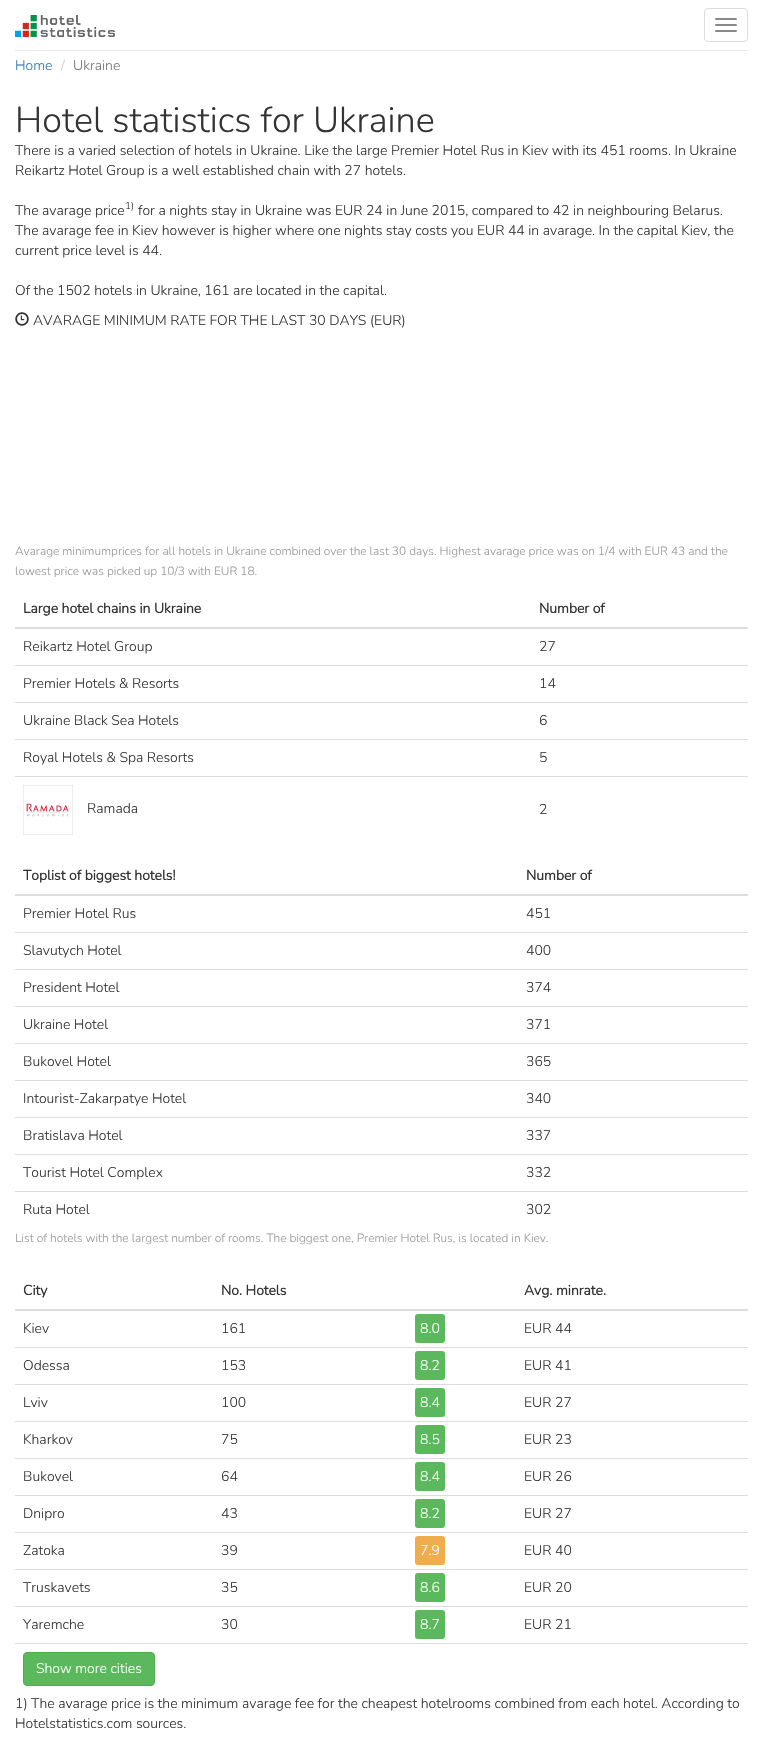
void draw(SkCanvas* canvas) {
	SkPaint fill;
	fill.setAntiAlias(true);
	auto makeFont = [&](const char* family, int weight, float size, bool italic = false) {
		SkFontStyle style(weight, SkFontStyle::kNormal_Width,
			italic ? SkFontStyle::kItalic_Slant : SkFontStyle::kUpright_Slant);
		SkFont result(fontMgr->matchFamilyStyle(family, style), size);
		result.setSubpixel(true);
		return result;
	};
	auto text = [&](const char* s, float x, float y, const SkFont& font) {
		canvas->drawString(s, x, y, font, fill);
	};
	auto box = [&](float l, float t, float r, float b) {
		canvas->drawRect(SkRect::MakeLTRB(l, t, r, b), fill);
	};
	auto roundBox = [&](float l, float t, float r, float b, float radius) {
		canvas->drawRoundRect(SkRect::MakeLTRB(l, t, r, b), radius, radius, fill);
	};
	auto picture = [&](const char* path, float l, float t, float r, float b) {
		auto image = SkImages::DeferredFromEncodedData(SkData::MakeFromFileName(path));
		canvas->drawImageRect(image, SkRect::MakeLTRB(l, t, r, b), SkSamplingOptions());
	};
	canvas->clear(0xFFFFFFFF);
	fill.setColor(0xFFE7E7E7);
	box(15, 50, 748, 51);
	picture("image0.png", 15, 15, 115, 37);
	fill.setStyle(SkPaint::kStroke_Style);
	fill.setStrokeWidth(1);
	fill.setColor(0xFFDDDDDD);
	canvas->drawRoundRect(SkRect::MakeLTRB(704.5f, 8.5f, 747.5f, 41.5f), 3.5f, 3.5f, fill);
	fill.setStyle(SkPaint::kFill_Style);
	fill.setColor(0xFF888888);
	roundBox(715, 18, 737, 20, 1);
	roundBox(715, 24, 737, 26, 1);
	roundBox(715, 30, 737, 32, 1);
	picture("image1.png", 15, 312, 29, 326);
	fill.setColor(0xFFDDDDDD);
	box(15, 627, 748, 629);
	box(15, 665, 748, 666);
	box(15, 702, 748, 703);
	box(15, 739, 748, 740);
	picture("image2.png", 23, 785, 73, 835);
	box(15, 776, 748, 777);
	box(15, 894, 748, 896);
	box(15, 932, 748, 933);
	box(15, 969, 748, 970);
	box(15, 1006, 748, 1007);
	box(15, 1043, 748, 1044);
	box(15, 1080, 748, 1081);
	box(15, 1117, 748, 1118);
	box(15, 1154, 748, 1155);
	box(15, 1191, 748, 1192);
	box(15, 1309, 748, 1311);
	fill.setColor(0xFF5CB85C);
	roundBox(415, 1314, 445, 1343, 3);
	roundBox(415, 1351, 445, 1380, 3);
	fill.setColor(0xFFDDDDDD);
	box(15, 1347, 748, 1348);
	fill.setColor(0xFF5CB85C);
	roundBox(415, 1388, 445, 1417, 3);
	fill.setColor(0xFFDDDDDD);
	box(15, 1384, 748, 1385);
	fill.setColor(0xFF5CB85C);
	roundBox(415, 1425, 445, 1454, 3);
	fill.setColor(0xFFDDDDDD);
	box(15, 1421, 748, 1422);
	fill.setColor(0xFF5CB85C);
	roundBox(415, 1462, 445, 1491, 3);
	fill.setColor(0xFFDDDDDD);
	box(15, 1458, 748, 1459);
	fill.setColor(0xFF5CB85C);
	roundBox(415, 1499, 445, 1528, 3);
	fill.setColor(0xFFDDDDDD);
	box(15, 1495, 748, 1496);
	fill.setColor(0xFFF0AD4E);
	roundBox(415, 1536, 445, 1565, 3);
	fill.setColor(0xFFDDDDDD);
	box(15, 1532, 748, 1533);
	fill.setColor(0xFF5CB85C);
	roundBox(415, 1573, 445, 1602, 3);
	fill.setColor(0xFFDDDDDD);
	box(15, 1569, 748, 1570);
	fill.setColor(0xFF5CB85C);
	roundBox(415, 1610, 445, 1639, 3);
	fill.setColor(0xFFDDDDDD);
	box(15, 1606, 748, 1607);
	box(15, 1643, 748, 1644);
	fill.setColor(0xFF5CB85C);
	canvas->drawRoundRect(SkRect::MakeLTRB(23.5f, 1652.5f, 154.5f, 1685.5f), 3.5f, 3.5f, fill);
	fill.setStyle(SkPaint::kStroke_Style);
	fill.setColor(0xFF4CAE4C);
	canvas->drawRoundRect(SkRect::MakeLTRB(23.5f, 1652.5f, 154.5f, 1685.5f), 3.5f, 3.5f, fill);
	auto font1 = makeFont("Nunito", 200, 14);
	fill.setStyle(SkPaint::kFill_Style);
	fill.setColor(0xFF337AB7);
	text("Home", 15, 70, font1);
	fill.setColor(0xFFCCCCCC);
	text("/", 61, 70, font1);
	fill.setColor(0xFF777777);
	text("Ukraine", 73, 70, font1);
	auto font2 = makeFont("Nunito", 200, 36);
	fill.setColor(0xFF333333);
	text("Hotel statistics for Ukraine", 15, 132, font2);
	text("There is a varied selection of hotels in Ukraine. Like the large Premier Hotel Rus in Kiev with its 451 rooms. In Ukraine", 15, 155, font1);
	text("Reikartz Hotel Group is a well established chain with 27 hotels.", 15, 175, font1);
	text("The avarage price", 15, 215, font1);
	auto font3 = makeFont("Nunito", 200, 10);
	text("1)", 125, 209, font3);
	text("for a nights stay in Ukraine was EUR 24 in June 2015, compared to 42 in neighbouring Belarus.", 138, 215, font1);
	text("The avarage fee in Kiev however is higher where one nights stay costs you EUR 44 in avarage. In the capital Kiev, the", 15, 235, font1);
	text("current price level is 44.", 15, 255, font1);
	text("Of the 1502 hotels in Ukraine, 161 are located in the capital.", 15, 295, font1);
	text("AVARAGE MINIMUM RATE FOR THE LAST 30 DAYS (EUR)", 33, 325, font1);
	auto font4 = makeFont("Nunito", 200, 11.9f);
	fill.setColor(0xFF999999);
	text("Avarage minimumprices for all hotels in Ukraine combined over the last 30 days. Highest avarage price was on 1/4 with EUR 43 and the", 15, 555, font4);
	text("lowest price was picked up 10/3 with EUR 18.", 15, 575, font4);
	auto font5 = makeFont("Nunito", 700, 14);
	fill.setColor(0xFF333333);
	text("Large hotel chains in Ukraine", 23, 613, font5);
	text("Number of", 539, 613, font5);
	text("Reikartz Hotel Group", 23, 651, font1);
	text("27", 539, 651, font1);
	text("Premier Hotels & Resorts", 23, 688, font1);
	text("14", 539, 688, font1);
	text("Ukraine Black Sea Hotels", 23, 725, font1);
	text("6", 539, 725, font1);
	text("Royal Hotels & Spa Resorts", 23, 762, font1);
	text("5", 539, 762, font1);
	text("Ramada", 87, 813, font1);
	text("2", 539, 814, font1);
	text("Toplist of biggest hotels!", 23, 880, font5);
	text("Number of", 526, 880, font5);
	text("Premier Hotel Rus", 23, 918, font1);
	text("451", 526, 918, font1);
	text("Slavutych Hotel", 23, 955, font1);
	text("400", 526, 955, font1);
	text("President Hotel", 23, 992, font1);
	text("374", 526, 992, font1);
	text("Ukraine Hotel", 23, 1029, font1);
	text("371", 526, 1029, font1);
	text("Bukovel Hotel", 23, 1066, font1);
	text("365", 526, 1066, font1);
	text("Intourist-Zakarpatye Hotel", 23, 1103, font1);
	text("340", 526, 1103, font1);
	text("Bratislava Hotel", 23, 1140, font1);
	text("337", 526, 1140, font1);
	text("Tourist Hotel Complex", 23, 1177, font1);
	text("332", 526, 1177, font1);
	text("Ruta Hotel", 23, 1214, font1);
	text("302", 526, 1214, font1);
	fill.setColor(0xFF999999);
	text("List of hotels with the largest number of rooms. The biggest one, Premier Hotel Rus, is located in Kiev.", 15, 1242, font4);
	fill.setColor(0xFF333333);
	text("City", 23, 1295, font5);
	text("No. Hotels", 221, 1295, font5);
	text("Avg. minrate.", 524, 1295, font5);
	text("Kiev", 23, 1333, font1);
	text("161", 221, 1333, font1);
	fill.setColor(0xFFFFFFFF);
	text("8.0", 420, 1333, font1);
	fill.setColor(0xFF333333);
	text("EUR 44", 524, 1333, font1);
	text("Odessa", 23, 1370, font1);
	text("153", 221, 1370, font1);
	fill.setColor(0xFFFFFFFF);
	text("8.2", 420, 1370, font1);
	fill.setColor(0xFF333333);
	text("EUR 41", 524, 1370, font1);
	text("Lviv", 23, 1407, font1);
	text("100", 221, 1407, font1);
	fill.setColor(0xFFFFFFFF);
	text("8.4", 420, 1407, font1);
	fill.setColor(0xFF333333);
	text("EUR 27", 524, 1407, font1);
	text("Kharkov", 23, 1444, font1);
	text("75", 221, 1444, font1);
	fill.setColor(0xFFFFFFFF);
	text("8.5", 420, 1444, font1);
	fill.setColor(0xFF333333);
	text("EUR 23", 524, 1444, font1);
	text("Bukovel", 23, 1481, font1);
	text("64", 221, 1481, font1);
	fill.setColor(0xFFFFFFFF);
	text("8.4", 420, 1481, font1);
	fill.setColor(0xFF333333);
	text("EUR 26", 524, 1481, font1);
	text("Dnipro", 23, 1518, font1);
	text("43", 221, 1518, font1);
	fill.setColor(0xFFFFFFFF);
	text("8.2", 420, 1518, font1);
	fill.setColor(0xFF333333);
	text("EUR 27", 524, 1518, font1);
	text("Zatoka", 23, 1555, font1);
	text("39", 221, 1555, font1);
	fill.setColor(0xFFFFFFFF);
	text("7.9", 420, 1555, font1);
	fill.setColor(0xFF333333);
	text("EUR 40", 524, 1555, font1);
	text("Truskavets", 23, 1592, font1);
	text("35", 221, 1592, font1);
	fill.setColor(0xFFFFFFFF);
	text("8.6", 420, 1592, font1);
	fill.setColor(0xFF333333);
	text("EUR 20", 524, 1592, font1);
	text("Yaremche", 23, 1629, font1);
	text("30", 221, 1629, font1);
	fill.setColor(0xFFFFFFFF);
	text("8.7", 420, 1629, font1);
	fill.setColor(0xFF333333);
	text("EUR 21", 524, 1629, font1);
	fill.setColor(0xFFFFFFFF);
	text("Show more cities", 36, 1673, font1);
	fill.setColor(0xFF333333);
	text("1) The avarage price is the minimum avarage fee for the cheapest hotelrooms combined from each hotel. According to", 15, 1708, font1);
	text("Hotelstatistics.com sources.", 15, 1728, font1);
}
